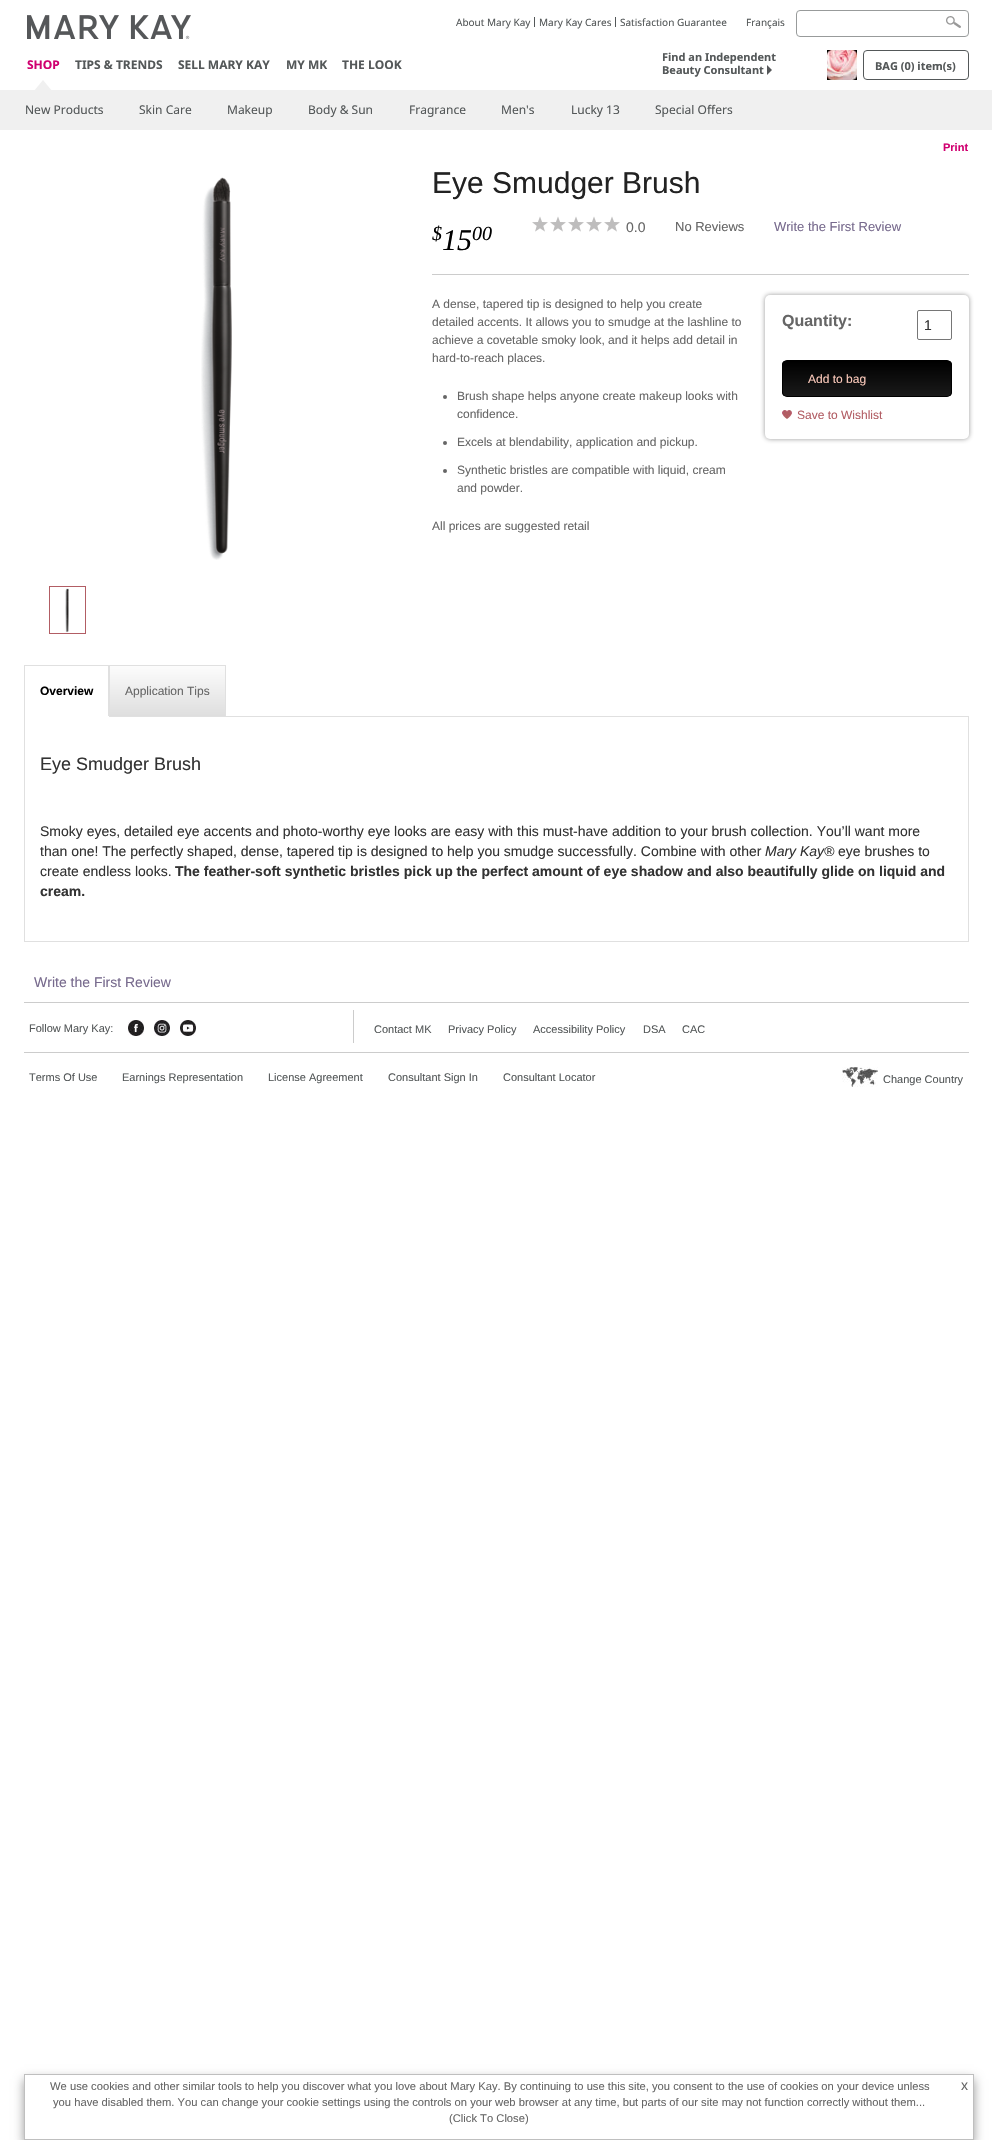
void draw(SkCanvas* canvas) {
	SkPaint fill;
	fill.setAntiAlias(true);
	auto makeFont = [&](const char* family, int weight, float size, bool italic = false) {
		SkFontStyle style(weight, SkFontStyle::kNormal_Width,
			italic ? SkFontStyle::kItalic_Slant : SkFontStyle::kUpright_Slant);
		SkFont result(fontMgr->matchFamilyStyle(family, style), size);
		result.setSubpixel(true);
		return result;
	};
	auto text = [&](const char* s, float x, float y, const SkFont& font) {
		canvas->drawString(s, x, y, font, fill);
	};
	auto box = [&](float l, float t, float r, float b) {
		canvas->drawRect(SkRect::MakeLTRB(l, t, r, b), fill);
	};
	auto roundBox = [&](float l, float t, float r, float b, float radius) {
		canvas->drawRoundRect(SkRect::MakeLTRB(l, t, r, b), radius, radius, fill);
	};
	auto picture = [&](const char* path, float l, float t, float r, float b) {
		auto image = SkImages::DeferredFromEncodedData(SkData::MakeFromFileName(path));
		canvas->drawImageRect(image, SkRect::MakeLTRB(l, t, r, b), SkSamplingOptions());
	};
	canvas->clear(0xFFFFFFFF);
	fill.setColor(0xFF545859);
	box(534, 17, 535, 27);
	box(615, 17, 616, 27);
	picture("image0.png", 946, 16, 961, 28);
	fill.setColor(0x99FFFFFF);
	canvas->drawRoundRect(SkRect::MakeLTRB(796.5f, 10.5f, 968.5f, 36.5f), 3.5f, 3.5f, fill);
	fill.setStyle(SkPaint::kStroke_Style);
	fill.setStrokeWidth(1);
	fill.setColor(0xFF989B9B);
	canvas->drawRoundRect(SkRect::MakeLTRB(796.5f, 10.5f, 968.5f, 36.5f), 3.5f, 3.5f, fill);
	picture("image1.png", 27, 15, 191, 39);
	fill.setStyle(SkPaint::kFill_Style);
	fill.setColor(0xFFF0F0F0);
	box(0, 90, 992, 130);
	canvas->drawPath(SkPathBuilder().moveTo(52, 91).lineTo(34, 91).lineTo(43, 80).close().detach(), fill);
	fill.setColor(0xFF555759);
	canvas->drawPath(SkPathBuilder().moveTo(767, 75).lineTo(767, 65).lineTo(772, 70).close().detach(), fill);
	picture("image2.png", 827, 50, 857, 80);
	fill.setStyle(SkPaint::kStroke_Style);
	fill.setColor(0xFF545859);
	canvas->drawRoundRect(SkRect::MakeLTRB(863.5f, 50.5f, 968.5f, 79.5f), 3.5f, 3.5f, fill);
	picture("image3.png", 201, 177, 232, 560);
	fill.setColor(0xFFB25D64);
	canvas->drawRect(SkRect::MakeLTRB(49.5f, 586.5f, 85.5f, 633.5f), fill);
	picture("image4.png", 65, 588, 69, 633);
	fill.setStyle(SkPaint::kFill_Style);
	fill.setColor(0xFFCCCCCC);
	box(432, 274, 969, 275);
	picture("image5.png", 532, 216, 548, 232);
	picture("image5.png", 550, 216, 566, 232);
	picture("image5.png", 568, 216, 584, 232);
	picture("image5.png", 586, 216, 602, 232);
	picture("image5.png", 604, 216, 620, 232);
	fill.setColor(0xFF666666);
	canvas->drawCircle(445, 397, 2, fill);
	canvas->drawCircle(445, 443, 2, fill);
	canvas->drawCircle(445, 471, 2, fill);
	fill.setColor(0x80323232);
	fill.setMaskFilter(SkMaskFilter::MakeBlur(kNormal_SkBlurStyle, 2.5f));
	canvas->drawRoundRect(SkRect::MakeLTRB(765, 295, 969, 439), 5, 5, fill);
	fill.setMaskFilter(nullptr);
	fill.setColor(0xFFFFFFFF);
	roundBox(765, 295, 969, 439, 5);
	fill.setStyle(SkPaint::kStroke_Style);
	fill.setColor(0xFF767676);
	canvas->drawRoundRect(SkRect::MakeLTRB(917.5f, 310.5f, 951.5f, 339.5f), 1.5f, 1.5f, fill);
	canvas->save();
	canvas->clipPath(SkPathBuilder().moveTo(787, 360).lineTo(947, 360).cubicTo(950, 360, 952, 362, 952, 365).lineTo(952, 392).cubicTo(952, 395, 950, 397, 947, 397).lineTo(787, 397).cubicTo(784, 397, 782, 395, 782, 392).lineTo(782, 365).cubicTo(782, 362, 784, 360, 787, 360).close().detach(), true);
	fill.setStyle(SkPaint::kFill_Style);
	{
		const SkColor colors[] = {0xFF000000, 0xFF1A1A1A};
		const float stops[] = {0, 1};
		const SkPoint ends[] = {{867, 361}, {867, 396}};
		fill.setShader(SkGradientShader::MakeLinear(ends, colors, stops, 2, SkTileMode::kClamp));
		fill.setAlpha(255);
	}
	box(782, 361, 952, 396);
	canvas->restore();
	fill.setStyle(SkPaint::kStroke_Style);
	fill.setShader(nullptr);
	fill.setColor(0xFF000000);
	canvas->drawRoundRect(SkRect::MakeLTRB(782.5f, 360.5f, 951.5f, 396.5f), 4.5f, 4.5f, fill);
	picture("image6.png", 782, 410, 792, 419);
	fill.setStyle(SkPaint::kFill_Style);
	fill.setColor(0xFFE0E0E0);
	box(24, 665, 109, 666);
	fill.setStyle(SkPaint::kStroke_Style);
	canvas->drawRect(SkRect::MakeLTRB(24.5f, 716.5f, 968.5f, 941.5f), fill);
	fill.setStyle(SkPaint::kFill_Style);
	box(108, 665, 109, 717);
	fill.setColor(0xFFFFFFFF);
	box(24, 716, 109, 717);
	fill.setColor(0xFFE0E0E0);
	box(24, 665, 25, 717);
	{
		const SkColor colors[] = {0xFFFCFCFC, 0xFFDEDEDE};
		const float stops[] = {0, 1};
		const SkPoint ends[] = {{168, 666}, {168, 716}};
		fill.setShader(SkGradientShader::MakeLinear(ends, colors, stops, 2, SkTileMode::kClamp));
		fill.setAlpha(255);
	}
	box(110, 666, 225, 716);
	fill.setStyle(SkPaint::kStroke_Style);
	fill.setShader(nullptr);
	fill.setColor(0xFFE0E0E0);
	canvas->drawRect(SkRect::MakeLTRB(109.5f, 665.5f, 225.5f, 716.5f), fill);
	fill.setStyle(SkPaint::kFill_Style);
	fill.setColor(0xFFCCCCCC);
	box(24, 1002, 969, 1003);
	box(24, 1052, 969, 1053);
	box(353, 1010, 354, 1043);
	picture("image7.png", 128, 1020, 144, 1036);
	picture("image8.png", 154, 1020, 170, 1036);
	picture("image9.png", 180, 1020, 196, 1036);
	picture("image10.png", 842, 1067, 878, 1087);
	canvas->save();
	canvas->clipPath(SkPathBuilder(SkPathFillType::kEvenOdd).moveTo(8, 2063).lineTo(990, 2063).lineTo(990, 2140).lineTo(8, 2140).close().moveTo(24, 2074).lineTo(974, 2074).lineTo(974, 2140).lineTo(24, 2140).close().detach(), true);
	fill.setColor(0xFF999999);
	fill.setMaskFilter(SkMaskFilter::MakeBlur(kNormal_SkBlurStyle, 5));
	canvas->drawRect(SkRect::MakeLTRB(24, 2079, 974, 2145), fill);
	fill.setMaskFilter(nullptr);
	canvas->restore();
	fill.setStyle(SkPaint::kStroke_Style);
	fill.setColor(0xFFBFBFBF);
	canvas->drawRect(SkRect::MakeLTRB(24.5f, 2074.5f, 973.5f, 2139.5f), fill);
	auto font1 = makeFont("Noto Sans", 400, 10);
	fill.setStyle(SkPaint::kFill_Style);
	fill.setColor(0xFF545859);
	text("About Mary Kay", 456, 26, font1);
	text("Mary Kay Cares", 539, 26, font1);
	text("Satisfaction Guarantee", 620, 26, font1);
	text("Français", 746, 26, font1);
	auto font2 = makeFont("Noto Sans", 700, 12);
	fill.setColor(0xFFD00070);
	text("SHOP", 27, 69, font2);
	fill.setColor(0xFF545859);
	text("TIPS & TRENDS", 75, 69, font2);
	text("SELL MARY KAY", 178, 69, font2);
	text("MY MK", 286, 69, font2);
	text("THE LOOK", 342, 69, font2);
	auto font3 = makeFont("Noto Sans", 700, 11);
	text("Find an Independent", 662, 61, font3);
	text("Beauty Consultant", 662, 74, font3);
	text("BAG (0) item(s)", 875, 70, font3);
	auto font4 = makeFont("Noto Sans", 400, 12);
	text("New Products", 25, 114, font4);
	text("Skin Care", 139, 114, font4);
	text("Makeup", 227, 114, font4);
	text("Body & Sun", 308, 114, font4);
	text("Fragrance", 409, 114, font4);
	text("Men's", 501, 114, font4);
	text("Lucky 13", 571, 114, font4);
	text("Special Offers", 655, 114, font4);
	auto font5 = makeFont("Liberation Sans", 700, 11);
	fill.setColor(0xFFD00070);
	text("Print", 943, 151, font5);
	auto font6 = makeFont("Liberation Sans", 400, 30);
	fill.setColor(0xFF222222);
	text("Eye Smudger Brush", 432, 193, font6);
	auto font7 = makeFont("Liberation Serif", 400, 20, true);
	fill.setColor(0xFF000000);
	text("$", 432, 240, font7);
	auto font8 = makeFont("Liberation Serif", 400, 30, true);
	text("15", 442, 250, font8);
	text("00", 472, 240, font7);
	auto font9 = makeFont("Liberation Sans", 400, 14);
	fill.setColor(0xFF666666);
	text("0.0", 626, 232, font9);
	auto font10 = makeFont("Liberation Sans", 400, 13);
	text("No Reviews", 675, 231, font10);
	fill.setColor(0xFF776A8D);
	text("Write the First Review", 774, 231, font10);
	auto font11 = makeFont("Liberation Sans", 400, 12);
	fill.setColor(0xFF666666);
	text("A dense, tapered tip is designed to help you create", 432, 308, font11);
	text("detailed accents. It allows you to smudge at the lashline to", 432, 326, font11);
	text("achieve a covetable smoky look, and it helps add detail in", 432, 344, font11);
	text("hard-to-reach places.", 432, 362, font11);
	text("Brush shape helps anyone create makeup looks with", 457, 400, font11);
	text("confidence.", 457, 418, font11);
	text("Excels at blendability, application and pickup.", 457, 446, font11);
	text("Synthetic bristles are compatible with liquid, cream", 457, 474, font11);
	text("and powder.", 457, 492, font11);
	text("All prices are suggested retail", 432, 530, font11);
	auto font12 = makeFont("Liberation Sans", 700, 16);
	text("Quantity:", 782, 326, font12);
	fill.setColor(0xFF333333);
	text("1", 924, 330, font9);
	fill.setColor(0xFFFBC9BA);
	text("Add to bag", 808, 383, font11);
	fill.setColor(0xFFB25D64);
	text("Save to Wishlist", 797, 419, font11);
	auto font13 = makeFont("Liberation Sans", 700, 12);
	fill.setColor(0xFF000000);
	text("Overview", 40, 695, font13);
	fill.setColor(0xFF666666);
	text("Application Tips", 125, 695, font11);
	auto font14 = makeFont("Liberation Sans", 400, 18);
	fill.setColor(0xFF333333);
	text("Eye Smudger Brush", 40, 770, font14);
	text("Smoky eyes, detailed eye accents and photo-worthy eye looks are easy with this must-have addition to your brush collection. You’ll want more", 40, 836, font9);
	text("than one! The perfectly shaped, dense, tapered tip is designed to help you smudge successfully. Combine with other", 40, 856, font9);
	auto font15 = makeFont("Liberation Sans", 400, 14, true);
	text("Mary Kay®", 765, 856, font15);
	text("eye brushes to", 838, 856, font9);
	text("create endless looks.", 40, 876, font9);
	auto font16 = makeFont("Liberation Sans", 700, 14);
	text("The feather-soft synthetic bristles pick up the perfect amount of eye shadow and also beautifully glide on liquid and", 175, 876, font16);
	text("cream.", 40, 896, font16);
	fill.setColor(0xFF776A8D);
	text("Write the First Review", 34, 987, font9);
	auto font17 = makeFont("Liberation Sans", 400, 11);
	fill.setColor(0xFF545859);
	text("Follow Mary Kay:", 29, 1032, font17);
	text("Contact MK", 374, 1033, font17);
	text("Privacy Policy", 448, 1033, font17);
	text("Accessibility Policy", 533, 1033, font17);
	text("DSA", 643, 1033, font17);
	text("CAC", 682, 1033, font17);
	text("Terms Of Use", 29, 1081, font17);
	text("Earnings Representation", 122, 1081, font17);
	text("License Agreement", 268, 1081, font17);
	text("Consultant Sign In", 388, 1081, font17);
	text("Consultant Locator", 503, 1081, font17);
	text("Change Country", 883, 1083, font17);
	auto font18 = makeFont("Liberation Sans", 400, 11.2f);
	fill.setColor(0xFF666666);
	text("We use cookies and other similar tools to help you discover what you love about Mary Kay. By continuing to use this site, you consent to the use of cookies on your device unless", 50, 2090, font18);
	text("you have disabled them. You can change your cookie settings using the controls on your web browser at any time, but parts of our site may not function correctly without them...", 53, 2106, font18);
	text("(Click To Close)", 449, 2122, font18);
	text("x", 961, 2090, font9);
}
